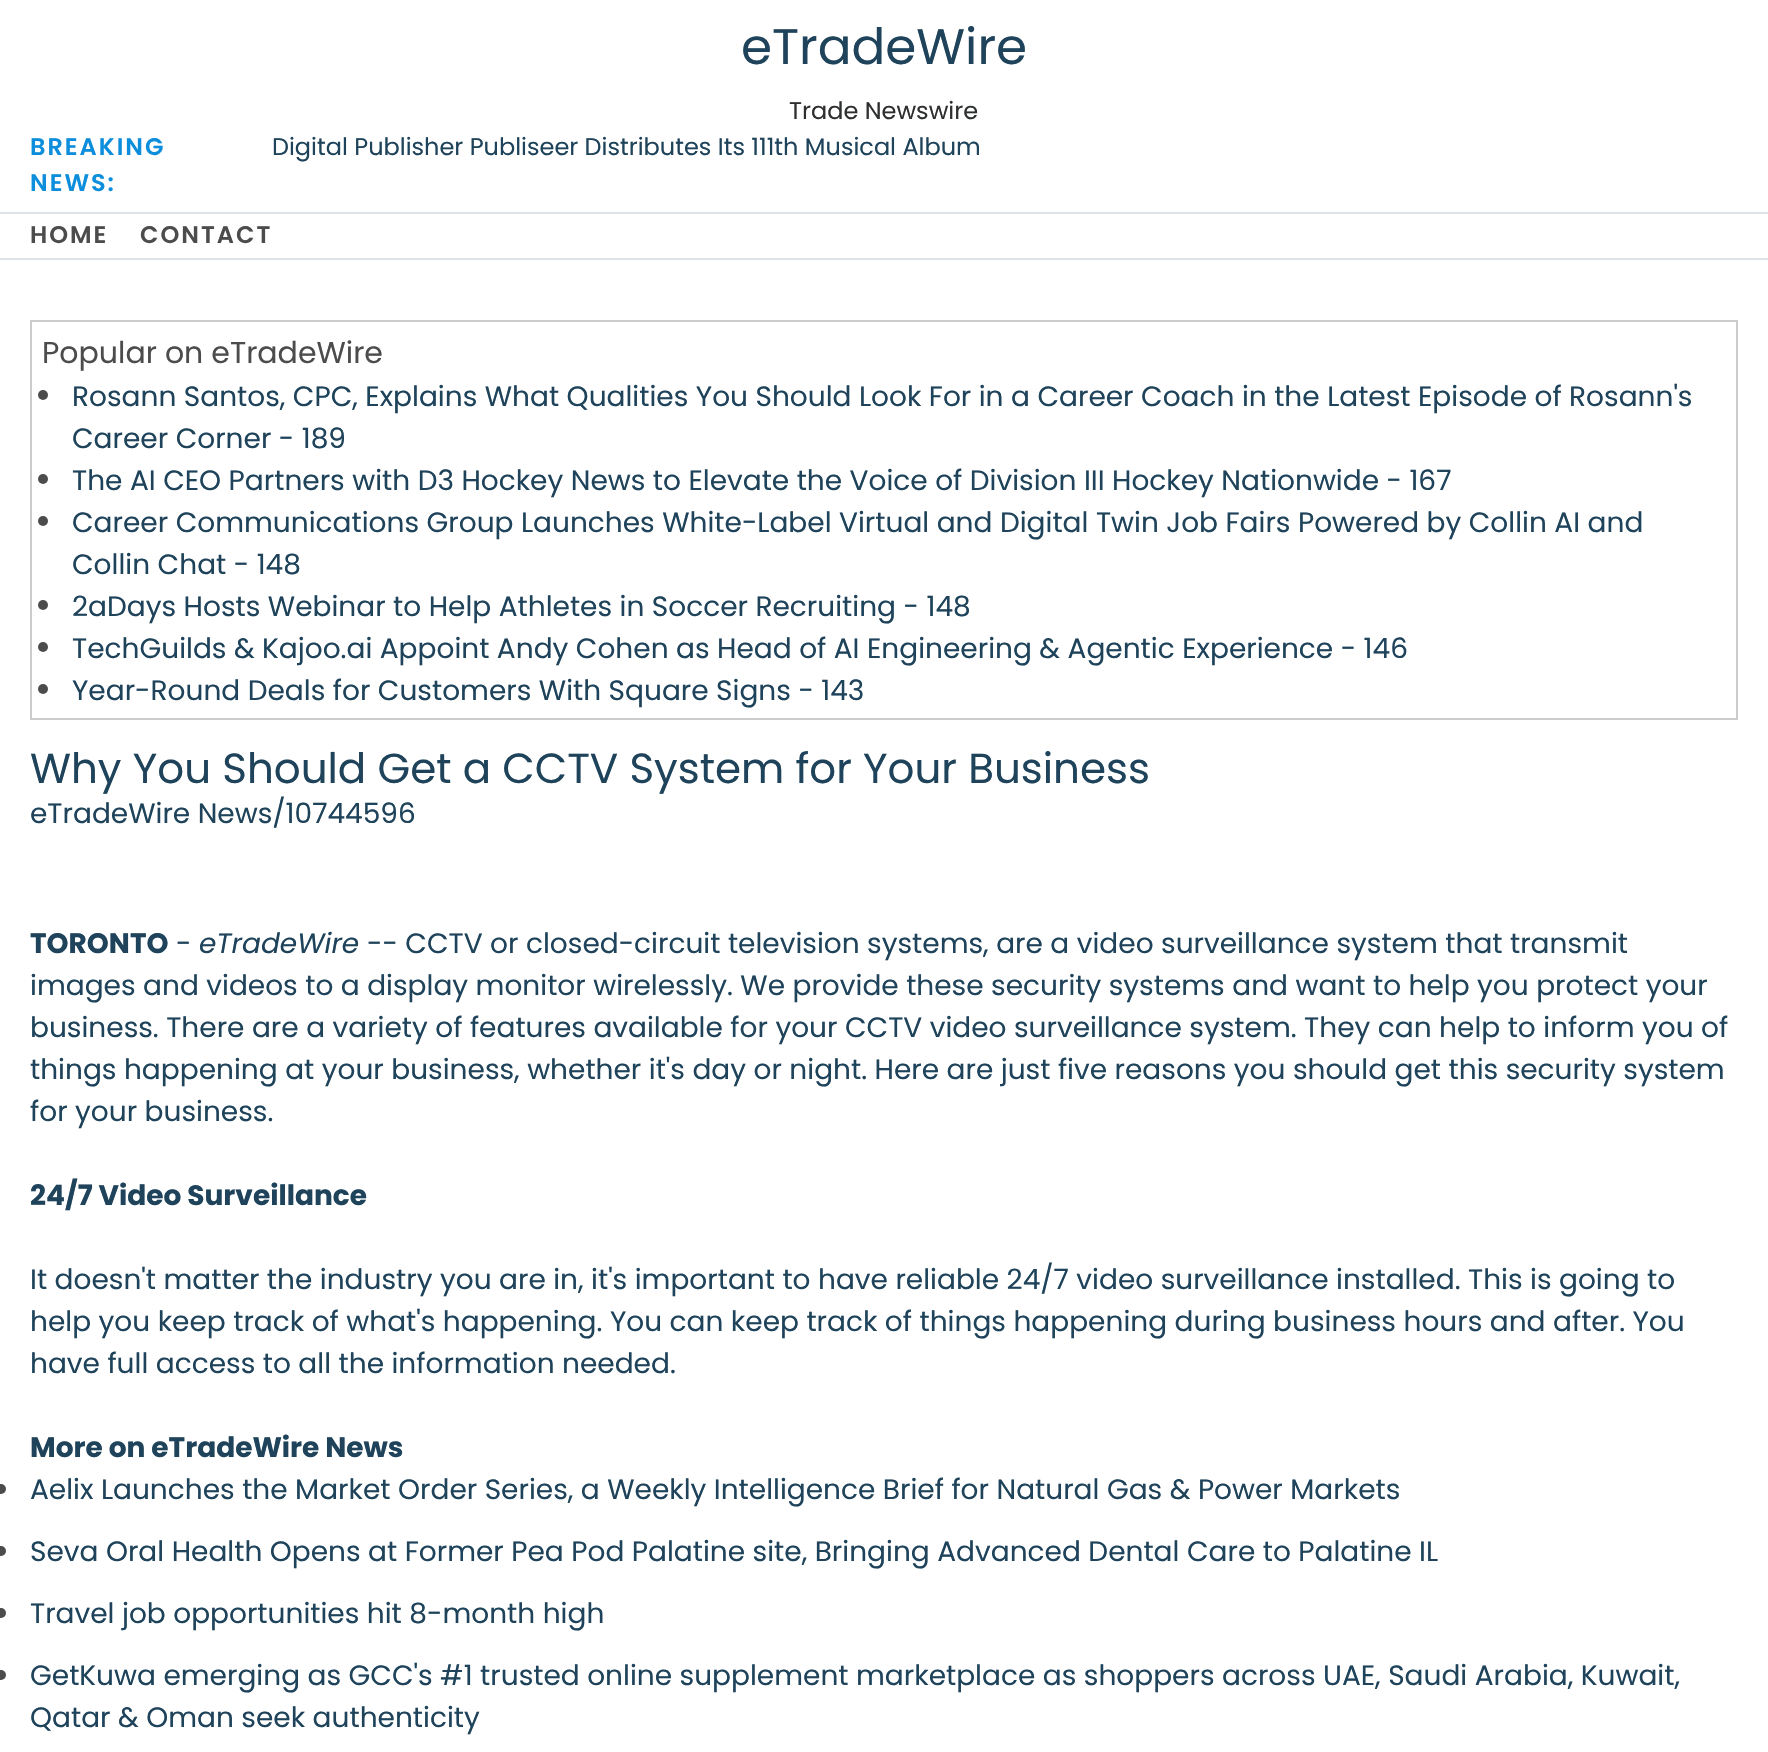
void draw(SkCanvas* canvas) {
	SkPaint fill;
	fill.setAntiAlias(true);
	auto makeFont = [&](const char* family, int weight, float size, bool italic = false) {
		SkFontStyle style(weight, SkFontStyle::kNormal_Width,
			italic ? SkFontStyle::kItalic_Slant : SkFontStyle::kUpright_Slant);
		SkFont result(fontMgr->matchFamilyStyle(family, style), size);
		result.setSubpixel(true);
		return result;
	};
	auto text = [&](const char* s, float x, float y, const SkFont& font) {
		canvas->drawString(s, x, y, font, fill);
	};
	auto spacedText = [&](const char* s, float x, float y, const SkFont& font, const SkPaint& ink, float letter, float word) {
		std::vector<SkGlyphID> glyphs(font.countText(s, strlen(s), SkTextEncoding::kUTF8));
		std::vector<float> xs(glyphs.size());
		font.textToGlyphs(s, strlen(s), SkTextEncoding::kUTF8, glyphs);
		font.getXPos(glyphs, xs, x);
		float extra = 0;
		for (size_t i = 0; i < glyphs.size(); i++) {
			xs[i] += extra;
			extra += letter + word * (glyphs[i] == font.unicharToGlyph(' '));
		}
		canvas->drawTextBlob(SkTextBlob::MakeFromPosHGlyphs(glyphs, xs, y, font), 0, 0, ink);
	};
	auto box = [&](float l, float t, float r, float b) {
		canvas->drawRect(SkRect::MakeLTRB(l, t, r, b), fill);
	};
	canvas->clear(0xFFFFFFFF);
	fill.setColor(0xFFDEE3E7);
	box(0, 212, 1768, 214);
	box(0, 258, 1768, 260);
	fill.setStyle(SkPaint::kStroke_Style);
	fill.setStrokeWidth(2);
	fill.setColor(0xFFCCCCCC);
	canvas->drawRect(SkRect::MakeLTRB(31, 321, 1737, 719), fill);
	fill.setStyle(SkPaint::kFill_Style);
	fill.setColor(0xFF4C4C4C);
	canvas->drawCircle(43, 395, 5, fill);
	canvas->drawCircle(43, 479, 5, fill);
	canvas->drawCircle(43, 521, 5, fill);
	canvas->drawCircle(43, 605, 5, fill);
	canvas->drawCircle(43, 647, 5, fill);
	canvas->drawCircle(43, 689, 5, fill);
	canvas->drawCircle(1, 1489, 5, fill);
	canvas->drawCircle(1, 1551, 5, fill);
	canvas->drawCircle(1, 1613, 5, fill);
	canvas->drawCircle(1, 1675, 5, fill);
	auto font1 = makeFont("Poppins", 400, 50);
	fill.setColor(0xFF1E435A);
	text("eTradeWire", 741, 64, font1);
	auto font2 = makeFont("Poppins", 400, 24);
	fill.setColor(0xFF2E2F30);
	text("Trade Newswire", 789, 119, font2);
	auto font3 = makeFont("Poppins", 600, 24);
	fill.setColor(0xFF0C8EDC);
	spacedText("BREAKING", 30, 155, font3, fill, 2, 0);
	spacedText("NEWS:", 30, 191, font3, fill, 2, 0);
	fill.setColor(0xFF1E435A);
	text("Digital Publisher Publiseer Distributes Its 111th Musical Album", 272, 155, font2);
	fill.setColor(0xFF4C4C4C);
	spacedText("HOME", 30, 243, font3, fill, 2, 0);
	spacedText("CONTACT", 140, 243, font3, fill, 2, 0);
	auto font4 = makeFont("Poppins", 400, 30);
	text("Popular on eTradeWire", 42, 363, font4);
	auto font5 = makeFont("Poppins", 400, 28);
	fill.setColor(0xFF1E435A);
	text("Rosann Santos, CPC, Explains What Qualities You Should Look For in a Career Coach in the Latest Episode of Rosann's", 72, 406, font5);
	text("Career Corner - 189", 72, 448, font5);
	text("The AI CEO Partners with D3 Hockey News to Elevate the Voice of Division III Hockey Nationwide - 167", 72, 490, font5);
	text("Career Communications Group Launches White-Label Virtual and Digital Twin Job Fairs Powered by Collin AI and", 72, 532, font5);
	text("Collin Chat - 148", 72, 574, font5);
	text("2aDays Hosts Webinar to Help Athletes in Soccer Recruiting - 148", 72, 616, font5);
	text("TechGuilds & Kajoo.ai Appoint Andy Cohen as Head of AI Engineering & Agentic Experience - 146", 72, 658, font5);
	text("Year-Round Deals for Customers With Square Signs - 143", 72, 700, font5);
	auto font6 = makeFont("Poppins", 400, 42);
	text("Why You Should Get a CCTV System for Your Business", 30, 783, font6);
	text("eTradeWire News/10744596", 30, 823, font5);
	auto font7 = makeFont("Poppins", 700, 28);
	text("TORONTO", 30, 953, font7);
	text("-", 176, 953, font5);
	auto font8 = makeFont("Poppins", 400, 28, true);
	text("eTradeWire", 199, 953, font8);
	text("-- CCTV or closed-circuit television systems, are a video surveillance system that transmit", 367, 953, font5);
	text("images and videos to a display monitor wirelessly. We provide these security systems and want to help you protect your", 30, 995, font5);
	text("business. There are a variety of features available for your CCTV video surveillance system. They can help to inform you of", 30, 1037, font5);
	text("things happening at your business, whether it's day or night. Here are just five reasons you should get this security system", 30, 1079, font5);
	text("for your business.", 30, 1121, font5);
	text("24/7 Video Surveillance", 30, 1205, font7);
	text("It doesn't matter the industry you are in, it's important to have reliable 24/7 video surveillance installed. This is going to", 30, 1289, font5);
	text("help you keep track of what's happening. You can keep track of things happening during business hours and after. You", 30, 1331, font5);
	text("have full access to all the information needed.", 30, 1373, font5);
	text("More on eTradeWire News", 30, 1457, font7);
	text("Aelix Launches the Market Order Series, a Weekly Intelligence Brief for Natural Gas & Power Markets", 30, 1499, font5);
	text("Seva Oral Health Opens at Former Pea Pod Palatine site, Bringing Advanced Dental Care to Palatine IL", 30, 1561, font5);
	text("Travel job opportunities hit 8-month high", 30, 1623, font5);
	text("GetKuwa emerging as GCC's #1 trusted online supplement marketplace as shoppers across UAE, Saudi Arabia, Kuwait,", 30, 1685, font5);
	text("Qatar & Oman seek authenticity", 30, 1727, font5);
}
